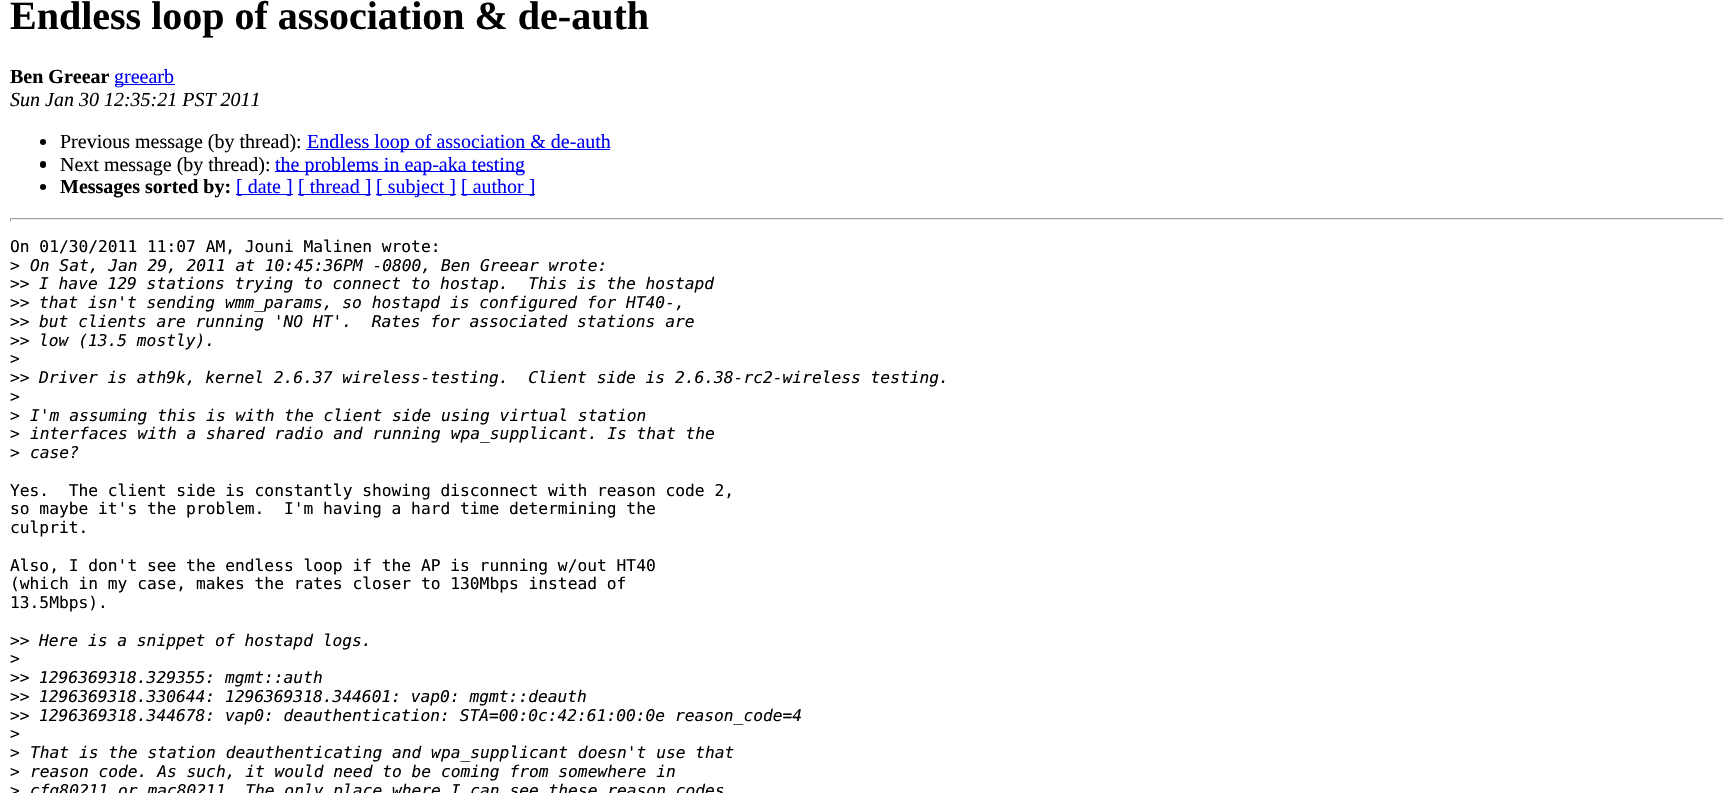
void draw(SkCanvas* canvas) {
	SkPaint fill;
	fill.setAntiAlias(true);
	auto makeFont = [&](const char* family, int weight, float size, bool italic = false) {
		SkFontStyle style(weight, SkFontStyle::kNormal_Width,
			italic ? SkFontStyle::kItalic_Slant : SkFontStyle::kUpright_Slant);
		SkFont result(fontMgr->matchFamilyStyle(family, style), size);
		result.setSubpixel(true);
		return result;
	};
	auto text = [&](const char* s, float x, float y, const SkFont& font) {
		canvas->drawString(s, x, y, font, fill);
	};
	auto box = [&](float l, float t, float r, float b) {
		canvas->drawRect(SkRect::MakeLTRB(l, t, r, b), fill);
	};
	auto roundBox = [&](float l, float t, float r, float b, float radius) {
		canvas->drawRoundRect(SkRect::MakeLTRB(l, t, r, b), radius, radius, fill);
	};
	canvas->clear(0xFFFFFFFF);
	fill.setColor(0xFF0000EE);
	box(115, 84, 175, 85);
	fill.setColor(0xFF000000);
	canvas->drawCircle(43, 142, 3, fill);
	fill.setColor(0xFF0000EE);
	box(306, 149, 610, 150);
	fill.setColor(0xFF000000);
	roundBox(40, 161, 46, 168, 3);
	fill.setColor(0xFF0000EE);
	box(275, 171, 525, 172);
	fill.setColor(0xFF000000);
	canvas->drawCircle(43, 187, 3, fill);
	fill.setColor(0xFF0000EE);
	box(236, 194, 293, 195);
	box(298, 194, 371, 195);
	box(376, 194, 456, 195);
	box(461, 194, 535, 195);
	fill.setColor(0xFF9F9F9F);
	box(10, 218, 1724, 219);
	fill.setColor(0xFFEEEEEE);
	box(1723, 218, 1724, 221);
	box(10, 219, 1724, 220);
	fill.setColor(0xFF9F9F9F);
	box(10, 218, 11, 221);
	auto font1 = makeFont("Liberation Serif", 700, 40);
	fill.setColor(0xFF000000);
	text("Endless loop of association & de-auth", 10, 29, font1);
	auto font2 = makeFont("Liberation Serif", 700, 20);
	text("Ben Greear", 10, 83, font2);
	auto font3 = makeFont("Liberation Serif", 400, 20);
	fill.setColor(0xFF0000EE);
	text("greearb", 114, 83, font3);
	auto font4 = makeFont("Liberation Serif", 400, 20, true);
	fill.setColor(0xFF000000);
	text("Sun Jan 30 12:35:21 PST 2011", 10, 106, font4);
	text("Previous message (by thread):", 60, 148, font3);
	fill.setColor(0xFF0000EE);
	text("Endless loop of association & de-auth", 307, 148, font3);
	fill.setColor(0xFF000000);
	text("Next message (by thread):", 60, 171, font3);
	fill.setColor(0xFF0000EE);
	text("the problems in eap-aka testing", 275, 171, font3);
	fill.setColor(0xFF000000);
	text("Messages sorted by:", 60, 193, font2);
	fill.setColor(0xFF0000EE);
	text("[ date ]", 236, 193, font3);
	text("[ thread ]", 298, 193, font3);
	text("[ subject ]", 376, 193, font3);
	text("[ author ]", 461, 193, font3);
	auto font5 = makeFont("DejaVu Sans Mono", 400, 16.25f);
	fill.setColor(0xFF000000);
	text("On 01/30/2011 11:07 AM, Jouni Malinen wrote:", 10, 252, font5);
	text(">", 10, 271, font5);
	auto font6 = makeFont("DejaVu Sans Mono", 400, 16.25f, true);
	text("On Sat, Jan 29, 2011 at 10:45:36PM -0800, Ben Greear wrote:", 30, 271, font6);
	text(">>", 10, 289, font5);
	text("I have 129 stations trying to connect to hostap.  This is the hostapd", 39, 289, font6);
	text(">>", 10, 308, font5);
	text("that isn't sending wmm_params, so hostapd is configured for HT40-,", 39, 308, font6);
	text(">>", 10, 327, font5);
	text("but clients are running 'NO HT'.  Rates for associated stations are", 39, 327, font6);
	text(">>", 10, 346, font5);
	text("low (13.5 mostly).", 39, 346, font6);
	text(">", 10, 364, font5);
	text(">>", 10, 383, font5);
	text("Driver is ath9k, kernel 2.6.37 wireless-testing.  Client side is 2.6.38-rc2-wireless testing.", 39, 383, font6);
	text(">", 10, 402, font5);
	text(">", 10, 421, font5);
	text("I'm assuming this is with the client side using virtual station", 30, 421, font6);
	text(">", 10, 439, font5);
	text("interfaces with a shared radio and running wpa_supplicant. Is that the", 30, 439, font6);
	text(">", 10, 458, font5);
	text("case?", 30, 458, font6);
	text("Yes.  The client side is constantly showing disconnect with reason code 2,", 10, 496, font5);
	text("so maybe it's the problem.  I'm having a hard time determining the", 10, 514, font5);
	text("culprit.", 10, 533, font5);
	text("Also, I don't see the endless loop if the AP is running w/out HT40", 10, 571, font5);
	text("(which in my case, makes the rates closer to 130Mbps instead of", 10, 589, font5);
	text("13.5Mbps).", 10, 608, font5);
	text(">>", 10, 646, font5);
	text("Here is a snippet of hostapd logs.", 39, 646, font6);
	text(">", 10, 664, font5);
	text(">>", 10, 683, font5);
	text("1296369318.329355: mgmt::auth", 39, 683, font6);
	text(">>", 10, 702, font5);
	text("1296369318.330644: 1296369318.344601: vap0: mgmt::deauth", 39, 702, font6);
	text(">>", 10, 721, font5);
	text("1296369318.344678: vap0: deauthentication: STA=00:0c:42:61:00:0e reason_code=4", 39, 721, font6);
	text(">", 10, 739, font5);
	text(">", 10, 758, font5);
	text("That is the station deauthenticating and wpa_supplicant doesn't use that", 30, 758, font6);
	text(">", 10, 777, font5);
	text("reason code. As such, it would need to be coming from somewhere in", 30, 777, font6);
	text(">", 10, 796, font5);
	text("cfg80211 or mac80211. The only place where I can see these reason codes", 30, 796, font6);
}
